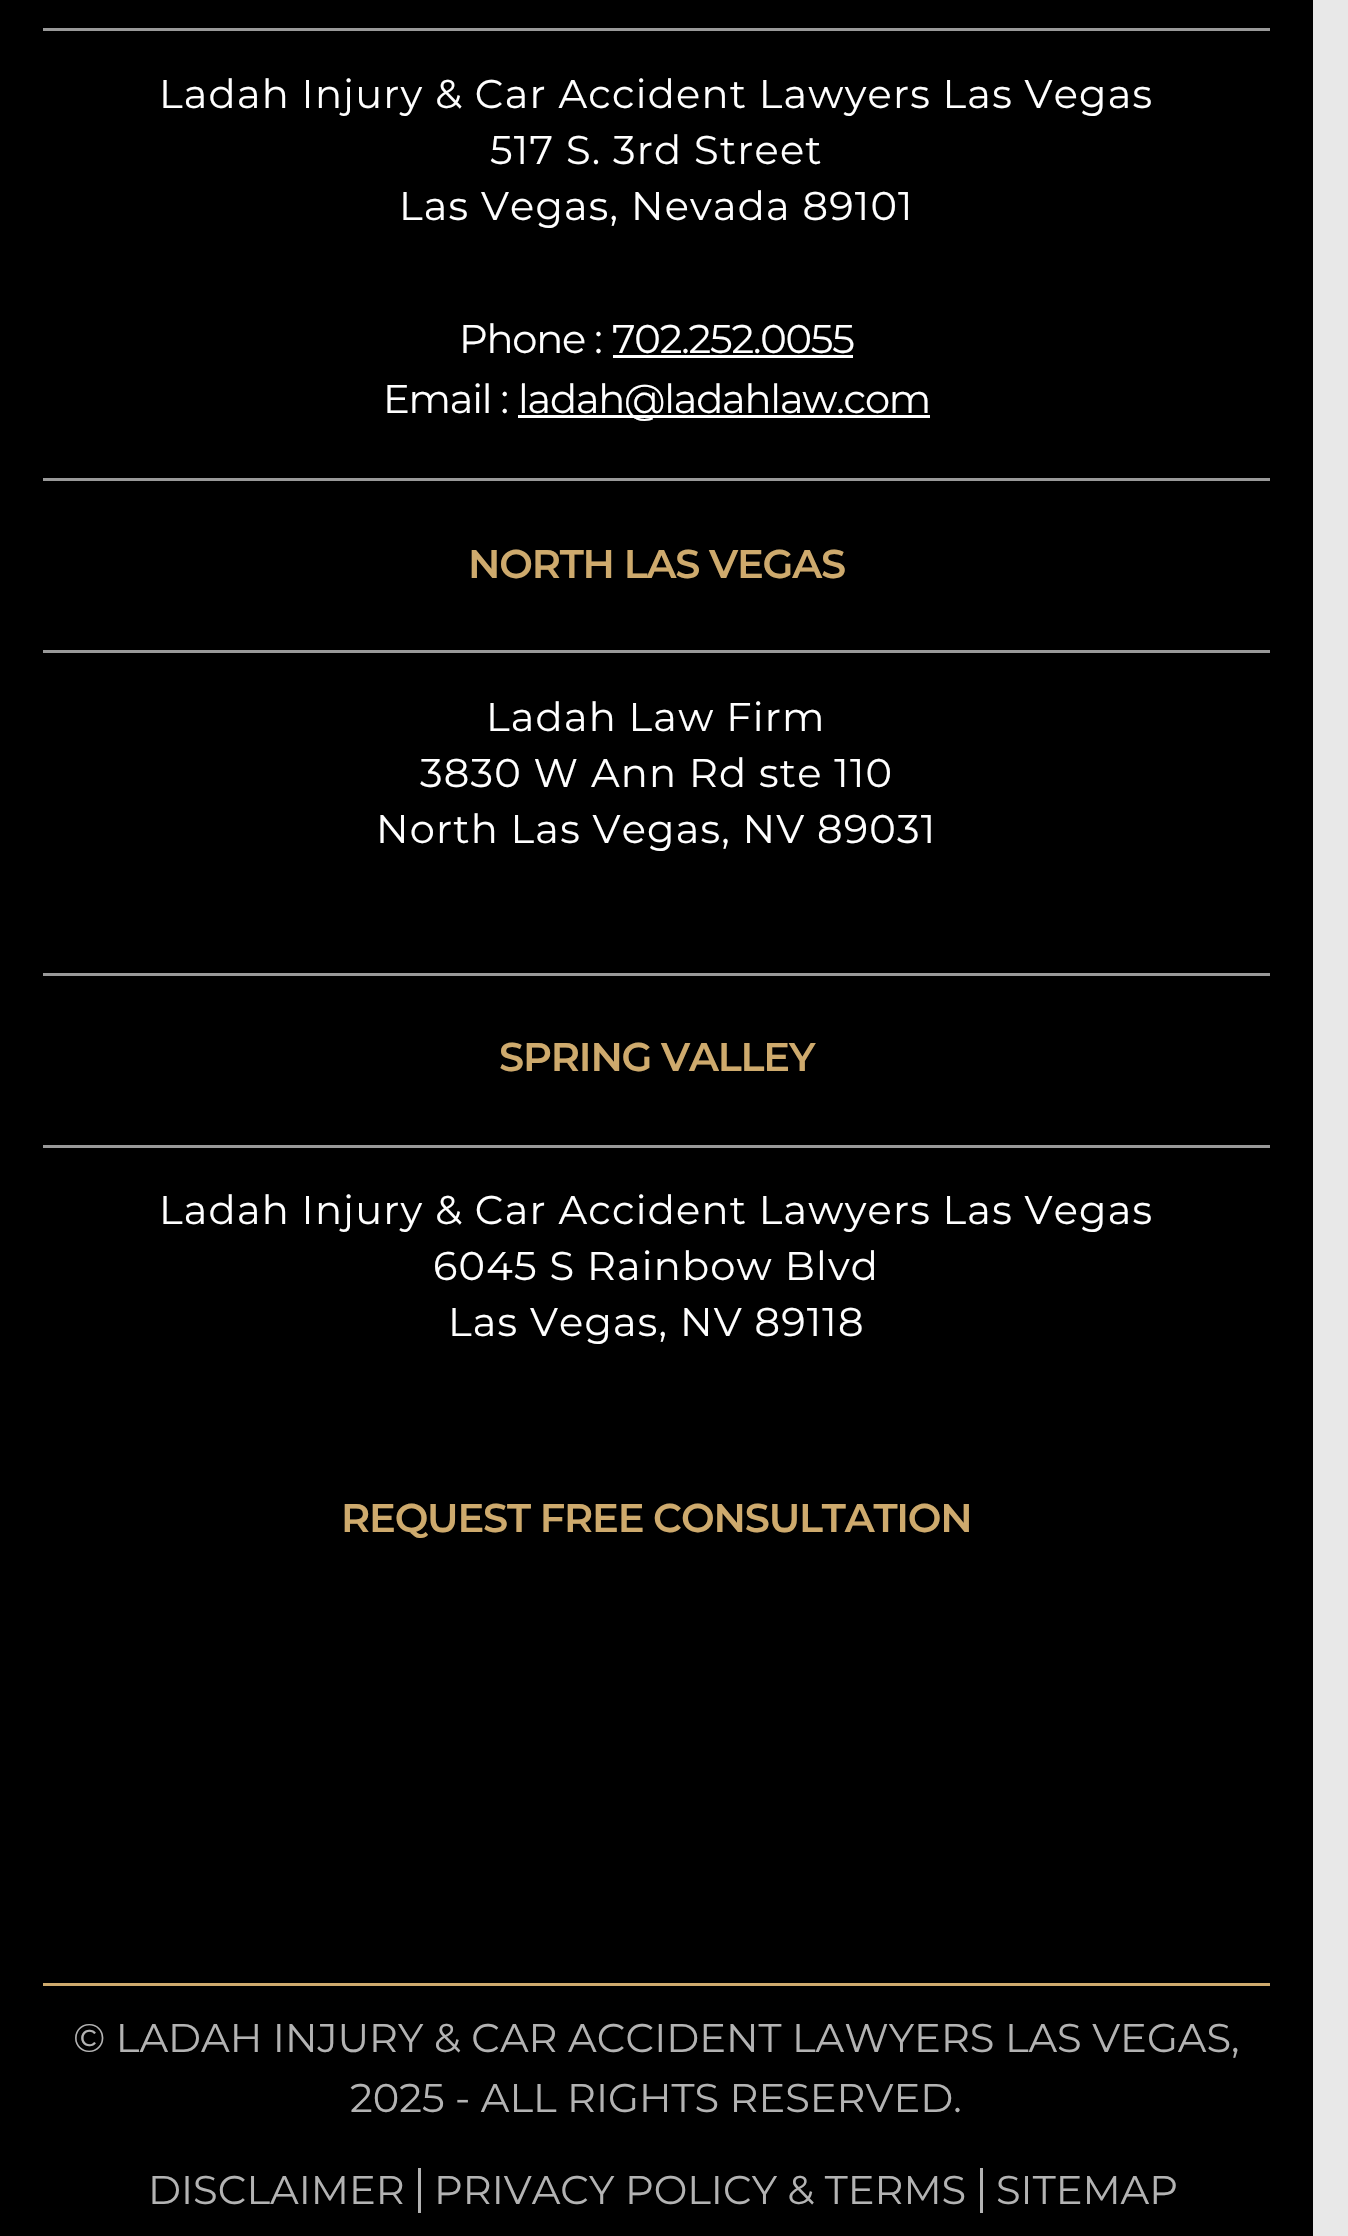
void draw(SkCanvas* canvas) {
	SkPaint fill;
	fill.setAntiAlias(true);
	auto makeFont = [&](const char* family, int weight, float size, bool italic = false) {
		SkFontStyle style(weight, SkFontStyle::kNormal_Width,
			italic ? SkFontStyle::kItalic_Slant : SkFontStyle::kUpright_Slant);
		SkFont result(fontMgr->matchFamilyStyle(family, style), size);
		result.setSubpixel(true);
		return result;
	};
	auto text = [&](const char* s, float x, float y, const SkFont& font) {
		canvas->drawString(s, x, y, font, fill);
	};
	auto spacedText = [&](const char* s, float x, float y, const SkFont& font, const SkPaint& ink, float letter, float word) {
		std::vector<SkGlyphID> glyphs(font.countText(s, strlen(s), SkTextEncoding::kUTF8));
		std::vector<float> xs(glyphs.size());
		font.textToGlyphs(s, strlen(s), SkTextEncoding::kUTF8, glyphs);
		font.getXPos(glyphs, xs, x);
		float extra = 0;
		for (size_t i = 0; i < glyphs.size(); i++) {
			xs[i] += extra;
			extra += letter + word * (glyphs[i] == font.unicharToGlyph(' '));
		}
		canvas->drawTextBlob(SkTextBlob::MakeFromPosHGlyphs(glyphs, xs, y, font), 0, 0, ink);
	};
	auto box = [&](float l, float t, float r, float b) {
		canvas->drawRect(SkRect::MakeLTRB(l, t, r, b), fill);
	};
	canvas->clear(0xFFE8E8E8);
	fill.setColor(0xFF000000);
	box(0, 0, 1313, 2236);
	fill.setColor(0xFF999999);
	box(43, 28, 1270, 31);
	fill.setColor(0xFFFFFFFF);
	box(613, 355, 853, 358);
	box(518, 415, 930, 418);
	fill.setColor(0xFF999999);
	box(43, 478, 1270, 481);
	box(43, 650, 1270, 653);
	box(43, 973, 1270, 976);
	box(43, 1145, 1270, 1148);
	fill.setColor(0xFFCEAA6D);
	box(43, 1983, 1270, 1986);
	fill.setColor(0xFFB3B3B3);
	box(418, 2168, 421, 2213);
	box(980, 2168, 983, 2213);
	auto font1 = makeFont("Montserrat", 100, 40);
	fill.setColor(0xFFFFFFFF);
	spacedText("Ladah Injury & Car Accident Lawyers Las Vegas", 159, 108, font1, fill, 1.2f, 0);
	spacedText("517 S. 3rd Street", 490, 164, font1, fill, 1.2f, 0);
	spacedText("Las Vegas, Nevada 89101", 399, 220, font1, fill, 1.2f, 0);
	spacedText("Phone :", 459, 353, font1, fill, -1.2f, 0);
	spacedText("702.252.0055", 612, 353, font1, fill, -1.2f, 0);
	spacedText("Email :", 383, 413, font1, fill, -1.2f, 0);
	spacedText("ladah@ladahlaw.com", 518, 413, font1, fill, -1.2f, 0);
	auto font2 = makeFont("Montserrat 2", 100, 40);
	fill.setColor(0xFFCEAA6D);
	spacedText("NORTH LAS VEGAS", 468, 578, font2, fill, -1.2f, 0);
	fill.setColor(0xFFFFFFFF);
	spacedText("Ladah Law Firm", 486, 731, font1, fill, 1.2f, 0);
	spacedText("3830 W Ann Rd ste 110", 420, 787, font1, fill, 1.2f, 0);
	spacedText("North Las Vegas, NV 89031", 376, 843, font1, fill, 1.2f, 0);
	fill.setColor(0xFFCEAA6D);
	spacedText("SPRING VALLEY", 499, 1071, font2, fill, -1.2f, 0);
	fill.setColor(0xFFFFFFFF);
	spacedText("Ladah Injury & Car Accident Lawyers Las Vegas", 159, 1224, font1, fill, 1.2f, 0);
	spacedText("6045 S Rainbow Blvd", 433, 1280, font1, fill, 1.2f, 0);
	spacedText("Las Vegas, NV 89118", 448, 1336, font1, fill, 1.2f, 0);
	fill.setColor(0xFFCEAA6D);
	spacedText("REQUEST FREE CONSULTATION", 341, 1532, font2, fill, -1.2f, 0);
	fill.setColor(0xFFB3B3B3);
	text("© LADAH INJURY & CAR ACCIDENT LAWYERS LAS VEGAS,", 73, 2052, font1);
	text("2025 - ALL RIGHTS RESERVED.", 350, 2112, font1);
	text("DISCLAIMER", 148, 2204, font1);
	text("PRIVACY POLICY & TERMS", 434, 2204, font1);
	text("SITEMAP", 996, 2204, font1);
}
